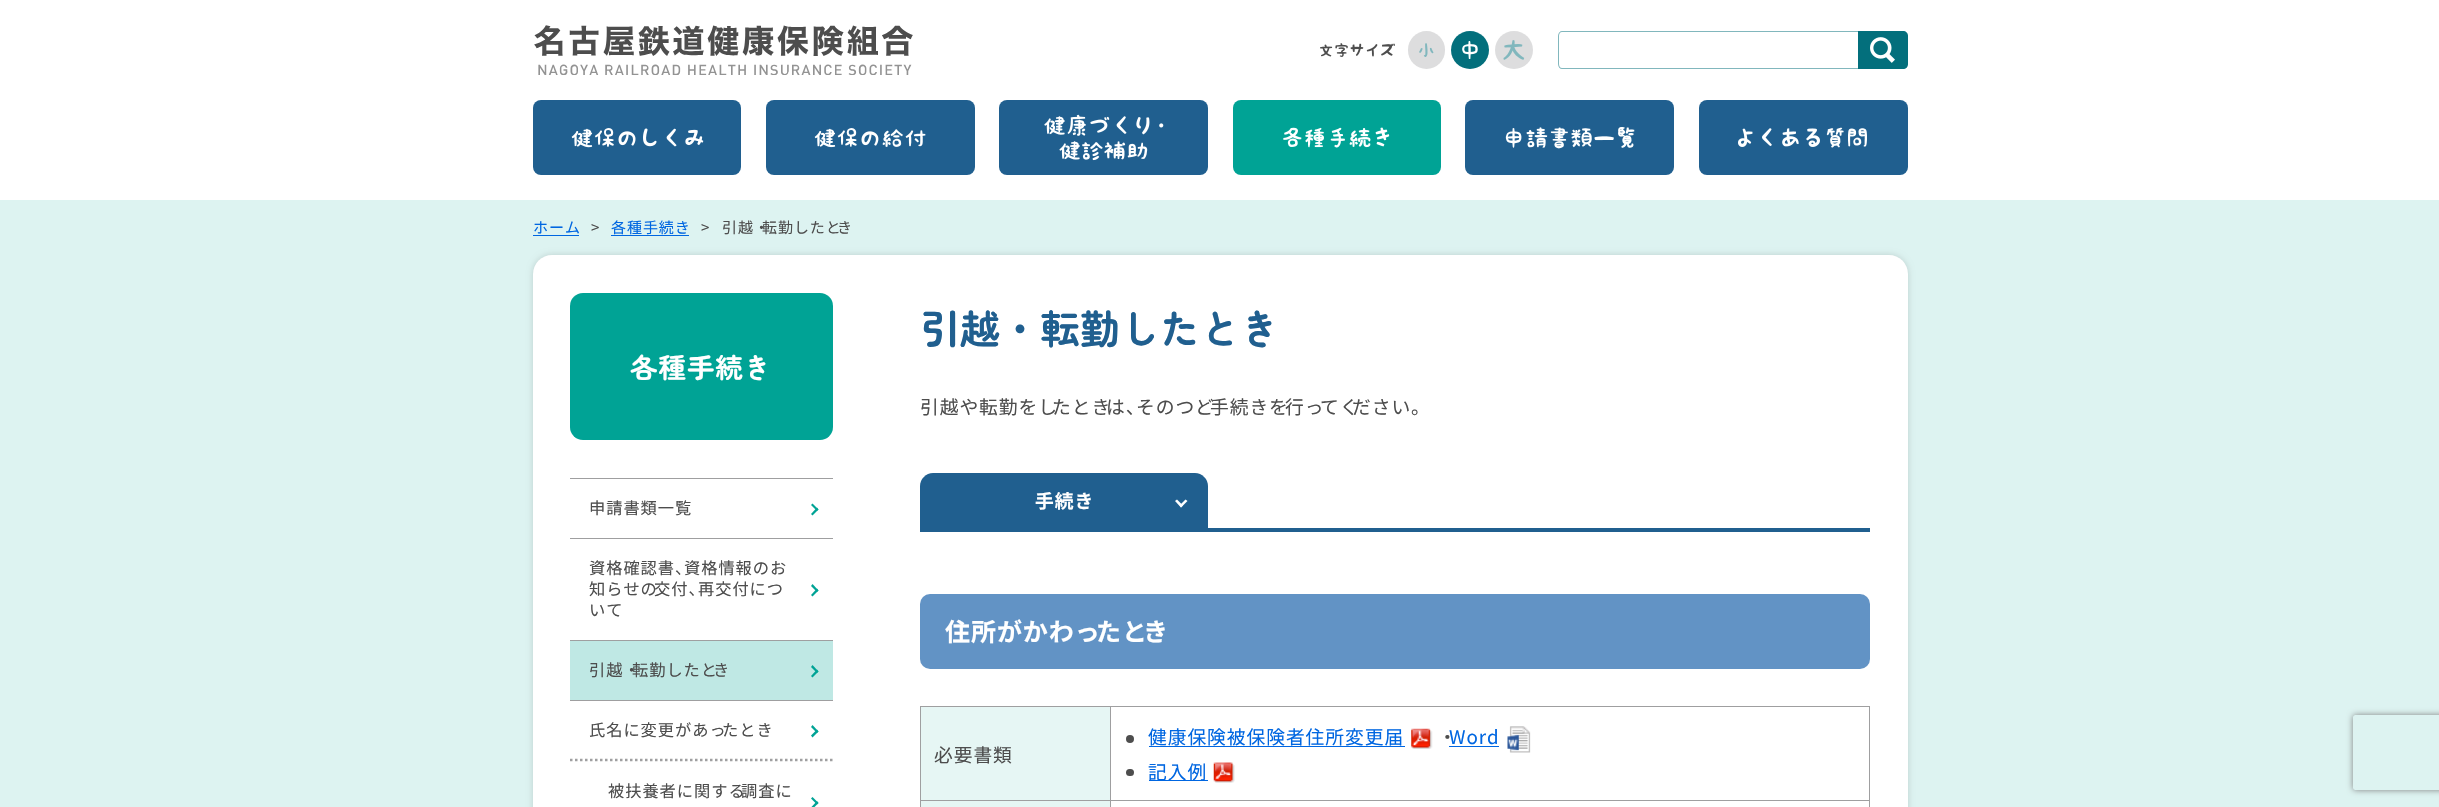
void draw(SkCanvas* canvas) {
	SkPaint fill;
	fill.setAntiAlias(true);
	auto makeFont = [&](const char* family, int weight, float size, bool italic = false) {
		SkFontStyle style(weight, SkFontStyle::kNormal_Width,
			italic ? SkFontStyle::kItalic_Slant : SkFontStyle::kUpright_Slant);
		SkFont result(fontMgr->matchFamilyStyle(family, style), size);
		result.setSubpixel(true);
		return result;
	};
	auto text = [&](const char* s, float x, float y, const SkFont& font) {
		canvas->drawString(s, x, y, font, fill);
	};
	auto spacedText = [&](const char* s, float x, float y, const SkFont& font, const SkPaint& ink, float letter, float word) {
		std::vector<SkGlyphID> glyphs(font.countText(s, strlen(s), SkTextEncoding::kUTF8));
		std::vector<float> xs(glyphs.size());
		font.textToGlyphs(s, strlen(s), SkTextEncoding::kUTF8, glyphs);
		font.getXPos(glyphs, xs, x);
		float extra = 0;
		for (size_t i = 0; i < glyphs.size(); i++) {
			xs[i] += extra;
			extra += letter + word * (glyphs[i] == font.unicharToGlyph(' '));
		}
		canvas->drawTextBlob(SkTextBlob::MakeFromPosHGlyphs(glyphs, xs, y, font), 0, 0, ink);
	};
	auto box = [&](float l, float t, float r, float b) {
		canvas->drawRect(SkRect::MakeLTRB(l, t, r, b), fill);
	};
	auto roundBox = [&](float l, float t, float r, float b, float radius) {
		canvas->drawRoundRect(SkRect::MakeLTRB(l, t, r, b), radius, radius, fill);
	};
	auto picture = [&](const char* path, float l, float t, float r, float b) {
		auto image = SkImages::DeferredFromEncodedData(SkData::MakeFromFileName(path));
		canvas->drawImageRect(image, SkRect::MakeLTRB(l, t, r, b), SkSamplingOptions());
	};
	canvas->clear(0xFFDDF3F1);
	fill.setColor(0xFFFFFFFF);
	box(0, 0, 2439, 200);
	picture("image0.png", 534, 25, 913, 75);
	picture("image1.png", 1320, 43, 1395, 57);
	fill.setColor(0xFFDDDDDE);
	roundBox(1408, 31, 1445, 69, 18.5f);
	picture("image2.png", 1419, 43, 1434, 57);
	fill.setColor(0xFF036F7C);
	canvas->drawCircle(1470, 50, 19, fill);
	picture("image3.png", 1462, 41, 1478, 59);
	fill.setColor(0xFFDDDDDE);
	canvas->drawCircle(1514, 50, 19, fill);
	picture("image4.png", 1503, 40, 1525, 60);
	fill.setColor(0xFF81B7BD);
	canvas->drawPath(SkPathBuilder(SkPathFillType::kEvenOdd).moveTo(1562, 31).lineTo(1858, 31).lineTo(1858, 69).lineTo(1562, 69).cubicTo(1560, 69, 1558, 67, 1558, 64).lineTo(1558, 36).cubicTo(1558, 33, 1560, 31, 1562, 31).close().moveTo(1562, 32).lineTo(1858, 32).lineTo(1858, 68).lineTo(1562, 68).cubicTo(1560, 68, 1559, 66, 1559, 64).lineTo(1559, 36).cubicTo(1559, 34, 1560, 32, 1562, 32).close().detach(), fill);
	fill.setColor(0xFF036F7C);
	canvas->drawPath(SkPathBuilder().moveTo(1858, 31).lineTo(1903, 31).cubicTo(1906, 31, 1908, 33, 1908, 36).lineTo(1908, 64).cubicTo(1908, 67, 1906, 69, 1903, 69).lineTo(1858, 69).close().detach(), fill);
	picture("image5.png", 1870, 37, 1895, 63);
	fill.setColor(0xFF205F8F);
	roundBox(533, 100, 741, 175, 8);
	picture("image6.png", 571, 128, 704, 148);
	roundBox(766, 100, 975, 175, 8);
	picture("image7.png", 814, 128, 926, 148);
	roundBox(999, 100, 1208, 175, 8);
	picture("image8.png", 1044, 114, 1164, 161);
	fill.setColor(0xFF00A395);
	roundBox(1233, 100, 1441, 175, 8);
	picture("image9.png", 1283, 127, 1390, 148);
	fill.setColor(0xFF205F8F);
	roundBox(1465, 100, 1674, 175, 8);
	picture("image10.png", 1505, 127, 1635, 149);
	roundBox(1699, 100, 1908, 175, 8);
	picture("image11.png", 1738, 127, 1867, 148);
	fill.setColor(0xFF0066E1);
	box(533, 235, 579, 236);
	box(611, 235, 689, 236);
	fill.setColor(0x26000000);
	fill.setMaskFilter(SkMaskFilter::MakeBlur(kNormal_SkBlurStyle, 3));
	canvas->drawRoundRect(SkRect::MakeLTRB(533, 255, 1908, 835), 19, 19, fill);
	fill.setMaskFilter(nullptr);
	fill.setColor(0xFFFFFFFF);
	roundBox(533, 255, 1908, 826, 19);
	fill.setColor(0xFF00A395);
	roundBox(570, 293, 833, 440, 13);
	fill.setColor(0xFF9F9FA0);
	box(570, 478, 833, 479);
	fill.setColor(0xFF00A395);
	canvas->drawPath(SkPathBuilder().moveTo(811, 505).lineTo(812.5f, 503.5f).lineTo(818.5f, 509.5f).lineTo(817, 511).close().detach(), fill);
	canvas->drawPath(SkPathBuilder().moveTo(811, 514).lineTo(817, 507.5f).lineTo(818.5f, 509.5f).lineTo(812.5f, 515.5f).close().detach(), fill);
	fill.setColor(0xFF9F9FA0);
	box(570, 538, 833, 539);
	fill.setColor(0xFF00A395);
	canvas->drawPath(SkPathBuilder().moveTo(811, 586).lineTo(812.5f, 584).lineTo(818.5f, 590.5f).lineTo(817, 592).close().detach(), fill);
	canvas->drawPath(SkPathBuilder().moveTo(811, 595).lineTo(817, 588.5f).lineTo(818.5f, 590.5f).lineTo(812.5f, 596.5f).close().detach(), fill);
	fill.setColor(0xFF9F9FA0);
	box(570, 640, 833, 641);
	fill.setColor(0xFFBFE8E4);
	box(570, 641, 833, 700);
	fill.setColor(0xFF00A395);
	canvas->drawPath(SkPathBuilder().moveTo(811, 667).lineTo(812.5f, 665).lineTo(818.5f, 671.5f).lineTo(817, 673).close().detach(), fill);
	canvas->drawPath(SkPathBuilder().moveTo(811, 676).lineTo(817, 669.5f).lineTo(818.5f, 671.5f).lineTo(812.5f, 677.5f).close().detach(), fill);
	fill.setColor(0xFF9F9FA0);
	box(570, 700, 833, 701);
	fill.setColor(0xFF00A395);
	canvas->drawPath(SkPathBuilder().moveTo(811, 727).lineTo(812.5f, 725).lineTo(818.5f, 731.5f).lineTo(817, 733).close().detach(), fill);
	canvas->drawPath(SkPathBuilder().moveTo(811, 735.5f).lineTo(817, 729.5f).lineTo(818.5f, 731.5f).lineTo(812.5f, 737.5f).close().detach(), fill);
	fill.setStyle(SkPaint::kStroke_Style);
	fill.setStrokeWidth(2.5f);
	fill.setColor(0xFF9F9FA0);
	fill.setPathEffect(SkDashPathEffect::Make({{2.5f, 2.5f}}, 0));
	canvas->drawPath(SkPathBuilder().moveTo(570, 760).lineTo(832.5f, 760).detach(), fill);
	fill.setPathEffect(nullptr);
	fill.setStyle(SkPaint::kFill_Style);
	fill.setColor(0xFF00A395);
	canvas->drawPath(SkPathBuilder().moveTo(811, 798.5f).lineTo(812.5f, 797).lineTo(818.5f, 803).lineTo(817, 804.5f).close().detach(), fill);
	canvas->drawPath(SkPathBuilder().moveTo(811, 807.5f).lineTo(817, 801).lineTo(818.5f, 803).lineTo(812.5f, 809).close().detach(), fill);
	fill.setColor(0xFF205F8F);
	box(920, 528, 1870, 532);
	canvas->drawPath(SkPathBuilder().moveTo(933, 473).lineTo(1195, 473).cubicTo(1202, 473, 1208, 479, 1208, 486).lineTo(1208, 528).lineTo(920, 528).lineTo(920, 486).cubicTo(920, 479, 926, 473, 933, 473).close().detach(), fill);
	fill.setColor(0xFFFFFFFF);
	canvas->drawPath(SkPathBuilder().moveTo(1185.5f, 499.5f).lineTo(1187.5f, 501).lineTo(1181, 507.5f).lineTo(1179.5f, 505.5f).close().detach(), fill);
	canvas->drawPath(SkPathBuilder().moveTo(1177, 499.5f).lineTo(1183, 505.5f).lineTo(1181, 507.5f).lineTo(1175, 501).close().detach(), fill);
	fill.setColor(0xFF6293C5);
	roundBox(920, 594, 1870, 669, 10);
	fill.setColor(0xFFE6F6F4);
	box(921, 707, 1110, 800);
	fill.setColor(0xFF9F9FA0);
	box(1110, 706, 1870, 707);
	box(1110, 800, 1870, 801);
	box(1110, 800, 1111, 807);
	box(920, 800, 1111, 801);
	box(1110, 706, 1111, 801);
	box(920, 706, 1111, 707);
	box(920, 800, 921, 807);
	box(920, 706, 921, 801);
	box(1869, 800, 1870, 807);
	box(1869, 706, 1870, 801);
	fill.setColor(0xFF4D4D4D);
	canvas->drawCircle(1130, 739, 4, fill);
	fill.setColor(0xFF0066E1);
	box(1149, 746, 1405, 747);
	picture("image12.png", 1411, 728, 1433, 749);
	box(1449, 746, 1499, 747);
	picture("image13.png", 1507, 726, 1531, 753);
	fill.setColor(0xFF4D4D4D);
	roundBox(1126, 769, 1134, 776, 3.5f);
	fill.setColor(0xFF0066E1);
	box(1149, 780, 1208, 781);
	picture("image14.png", 1213, 762, 1235, 783);
	fill.setColor(0xFFE6F6F4);
	box(921, 801, 1110, 807);
	canvas->save();
	canvas->clipPath(SkPathBuilder(SkPathFillType::kEvenOdd).moveTo(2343, 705).lineTo(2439, 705).lineTo(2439, 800).lineTo(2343, 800).close().moveTo(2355.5f, 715).lineTo(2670.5f, 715).cubicTo(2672, 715, 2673, 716, 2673, 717.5f).lineTo(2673, 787.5f).cubicTo(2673, 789, 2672, 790, 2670.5f, 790).lineTo(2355.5f, 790).cubicTo(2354, 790, 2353, 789, 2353, 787.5f).lineTo(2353, 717.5f).cubicTo(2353, 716, 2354, 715, 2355.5f, 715).close().detach(), true);
	fill.setColor(0xFF808080);
	fill.setMaskFilter(SkMaskFilter::MakeBlur(kNormal_SkBlurStyle, 3));
	canvas->drawRoundRect(SkRect::MakeLTRB(2353, 715, 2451, 790), 2.5f, 2.5f, fill);
	fill.setMaskFilter(nullptr);
	canvas->restore();
	auto font1 = makeFont("Noto Sans JP", 400, 15);
	fill.setColor(0xFF0066E1);
	spacedText("ホーム", 533, 233, font1, fill, 0.95f, 0);
	fill.setColor(0xFF4D4D4D);
	spacedText(">", 591, 233, font1, fill, 0.95f, 0);
	fill.setColor(0xFF0066E1);
	spacedText("各種手続き", 611, 233, font1, fill, 0.95f, 0);
	fill.setColor(0xFF4D4D4D);
	spacedText(">", 701, 233, font1, fill, 0.95f, 0);
	spacedText("引越・", 722, 233, font1, fill, 0.95f, 0);
	spacedText("転勤したと", 762, 233, font1, fill, 0.95f, 0);
	spacedText("き", 837, 233, font1, fill, 0.95f, 0);
	auto font2 = makeFont("Zen Maru Gothic", 700, 27.5f);
	fill.setColor(0xFFFFFFFF);
	spacedText("各種手続き", 630, 378, font2, fill, 0.95f, 0);
	auto font3 = makeFont("Noto Sans JP", 400, 16.25f);
	fill.setColor(0xFF4D4D4D);
	spacedText("申請書類一覧", 589, 514, font3, fill, 0.95f, 0);
	spacedText("資格確認書、", 589, 574, font3, fill, 0.95f, 0);
	spacedText("資格情報のお", 684, 574, font3, fill, 0.95f, 0);
	spacedText("知らせの", 589, 595, font3, fill, 0.95f, 0);
	spacedText("交付、", 654, 595, font3, fill, 0.95f, 0);
	spacedText("再交付につ", 698, 595, font3, fill, 0.95f, 0);
	spacedText("いて", 589, 616, font3, fill, 0.95f, 0);
	spacedText("引越・", 589, 676, font3, fill, 0.95f, 0);
	spacedText("転勤したと", 632, 676, font3, fill, 0.95f, 0);
	spacedText("き", 713, 676, font3, fill, 0.95f, 0);
	spacedText("氏名に変更があっ", 589, 736, font3, fill, 0.95f, 0);
	spacedText("たとき", 722, 736, font3, fill, 0.95f, 0);
	spacedText("被扶養者に関する", 608, 797, font3, fill, 0.95f, 0);
	spacedText("調査に", 741, 797, font3, fill, 0.95f, 0);
	auto font4 = makeFont("Zen Maru Gothic", 700, 40);
	fill.setColor(0xFF205F8F);
	text("引越・転勤したとき", 920, 344, font4);
	auto font5 = makeFont("Noto Sans JP", 400, 18.75f);
	fill.setColor(0xFF4D4D4D);
	spacedText("引越や転勤をし", 920, 414, font5, fill, 0.95f, 0);
	spacedText("たとき", 1052, 414, font5, fill, 0.95f, 0);
	spacedText("は、", 1106, 414, font5, fill, 0.95f, 0);
	spacedText("そのつど", 1136, 414, font5, fill, 0.95f, 0);
	spacedText("手続きを", 1210, 414, font5, fill, 0.95f, 0);
	spacedText("行っ", 1285, 414, font5, fill, 0.95f, 0);
	spacedText("てく", 1320, 414, font5, fill, 0.95f, 0);
	spacedText("ださい。", 1352, 414, font5, fill, 0.95f, 0);
	auto font6 = makeFont("Noto Sans JP", 700, 18.75f);
	fill.setColor(0xFFFFFFFF);
	spacedText("手続き", 1035, 508, font6, fill, 0.95f, 0);
	auto font7 = makeFont("Noto Sans JP", 700, 25);
	spacedText("住所がかわっ", 945, 641, font7, fill, 0.95f, 0);
	spacedText("たと", 1096, 641, font7, fill, 0.95f, 0);
	spacedText("き", 1143, 641, font7, fill, 0.95f, 0);
	fill.setColor(0xFF4D4D4D);
	spacedText("必要書類", 934, 762, font5, fill, 0.95f, 0);
	fill.setColor(0xFF0066E1);
	spacedText("健康保険被保険者住所変更届", 1148, 744, font5, fill, 0.95f, 0);
	fill.setColor(0xFF4D4D4D);
	spacedText("・", 1438, 744, font5, fill, 0.95f, 0);
	fill.setColor(0xFF0066E1);
	spacedText("Word", 1449, 744, font5, fill, 0.95f, 0);
	spacedText("記入例", 1148, 779, font5, fill, 0.95f, 0);
}
